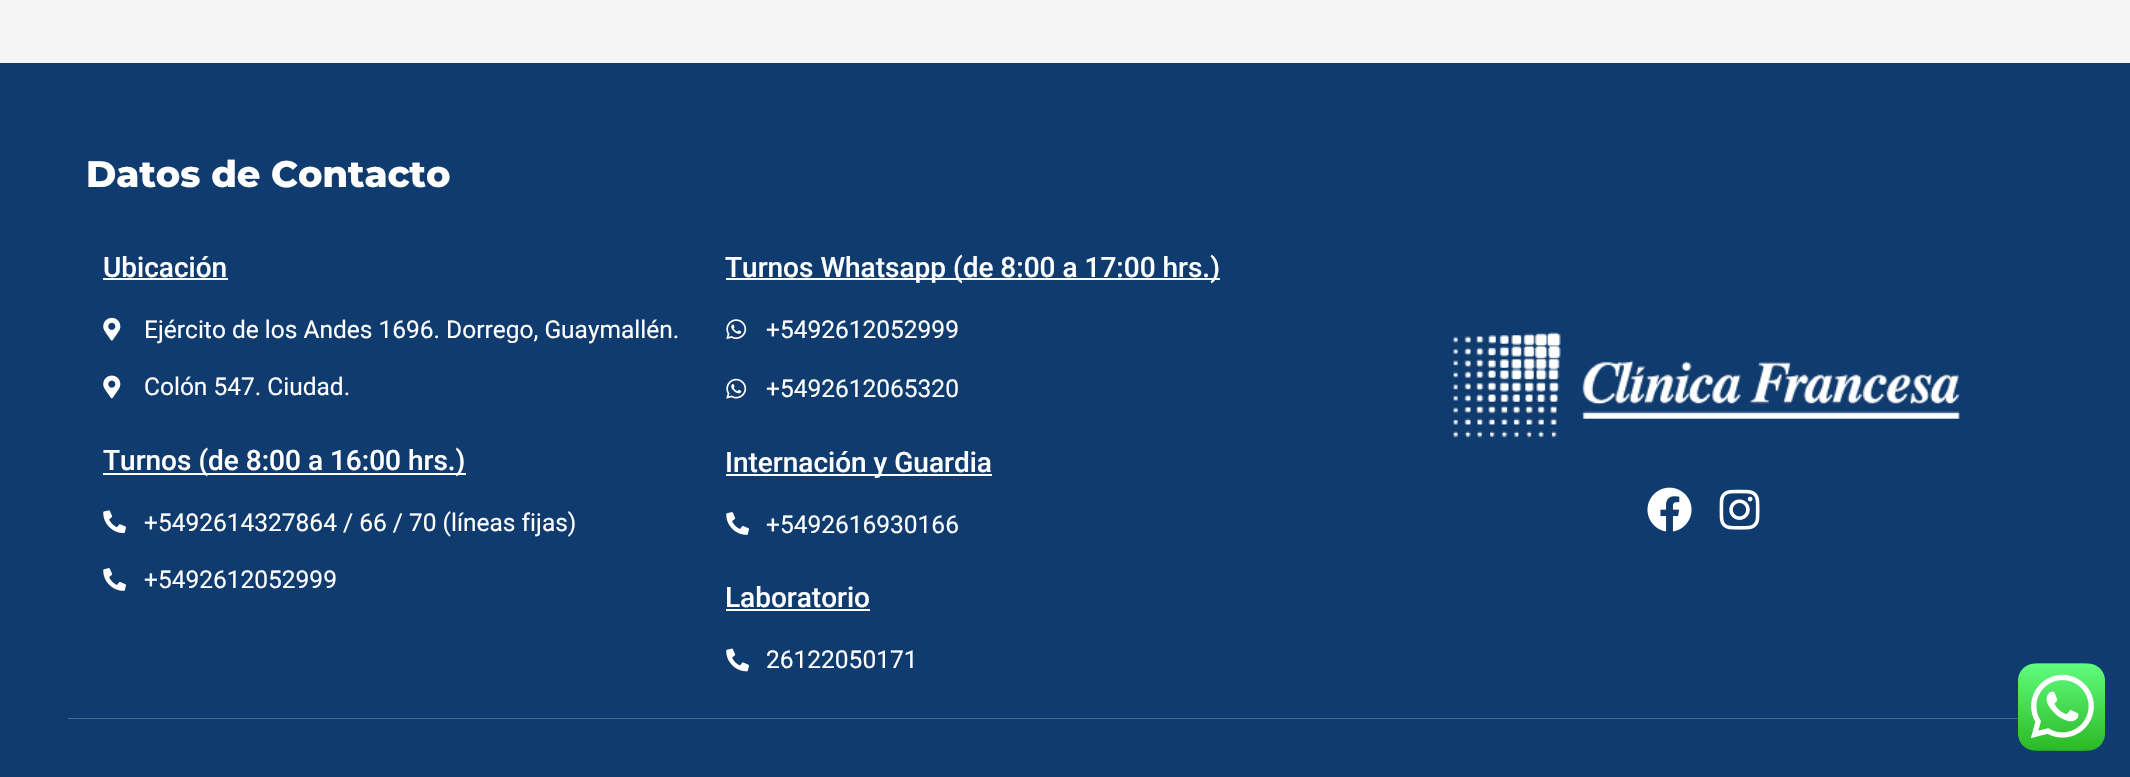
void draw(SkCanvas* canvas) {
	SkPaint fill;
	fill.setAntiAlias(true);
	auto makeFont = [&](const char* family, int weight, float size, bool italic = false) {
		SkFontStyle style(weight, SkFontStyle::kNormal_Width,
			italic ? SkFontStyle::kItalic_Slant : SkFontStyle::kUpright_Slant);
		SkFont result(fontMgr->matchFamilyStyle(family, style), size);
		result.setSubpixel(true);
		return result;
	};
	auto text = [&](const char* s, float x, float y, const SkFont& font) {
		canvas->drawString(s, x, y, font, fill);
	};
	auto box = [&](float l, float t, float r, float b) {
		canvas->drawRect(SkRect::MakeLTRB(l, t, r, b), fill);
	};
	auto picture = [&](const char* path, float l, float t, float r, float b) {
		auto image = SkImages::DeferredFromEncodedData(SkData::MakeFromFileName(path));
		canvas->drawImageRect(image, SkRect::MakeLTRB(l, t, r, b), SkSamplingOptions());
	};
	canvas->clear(0xFFF5F5F5);
	fill.setColor(0xFF0F3B6E);
	box(0, 63, 2130, 777);
	fill.setColor(0xFF46688F);
	box(68, 718, 2018, 719);
	fill.setColor(0xFFFFFFFF);
	box(103, 278, 228, 280);
	picture("image0.png", 103, 317, 121, 341);
	picture("image1.png", 103, 375, 121, 399);
	box(103, 473, 466, 475);
	picture("image2.png", 103, 510, 126, 534);
	picture("image3.png", 103, 568, 126, 591);
	box(726, 278, 1220, 280);
	picture("image4.png", 726, 319, 747, 340);
	picture("image5.png", 726, 378, 747, 399);
	box(726, 474, 992, 476);
	picture("image3.png", 726, 512, 749, 535);
	box(726, 609, 870, 611);
	picture("image6.png", 726, 648, 749, 672);
	picture("image7.png", 1453, 332, 1960, 438);
	picture("image8.png", 1647, 487, 1692, 532);
	picture("image9.png", 1719, 489, 1760, 530);
	picture("image10.png", 2018, 663, 2105, 751);
	auto font1 = makeFont("Montserrat", 800, 36.75f);
	text("Datos de Contacto", 86, 187, font1);
	auto font2 = makeFont("Roboto", 500, 28);
	text("Ubicación", 103, 277, font2);
	auto font3 = makeFont("Roboto", 400, 24.5f);
	text("Ejército de los Andes 1696. Dorrego, Guaymallén.", 144, 338, font3);
	text("Colón 547. Ciudad.", 144, 395, font3);
	text("Turnos (de 8:00 a 16:00 hrs.)", 103, 470, font2);
	text("+5492614327864 / 66 / 70 (líneas fijas)", 144, 531, font3);
	text("+5492612052999", 144, 588, font3);
	text("Turnos Whatsapp (de 8:00 a 17:00 hrs.)", 725, 277, font2);
	text("+5492612052999", 766, 338, font3);
	text("+5492612065320", 766, 397, font3);
	text("Internación y Guardia", 725, 472, font2);
	text("+5492616930166", 766, 533, font3);
	text("Laboratorio", 725, 607, font2);
	text("26122050171", 766, 668, font3);
}
